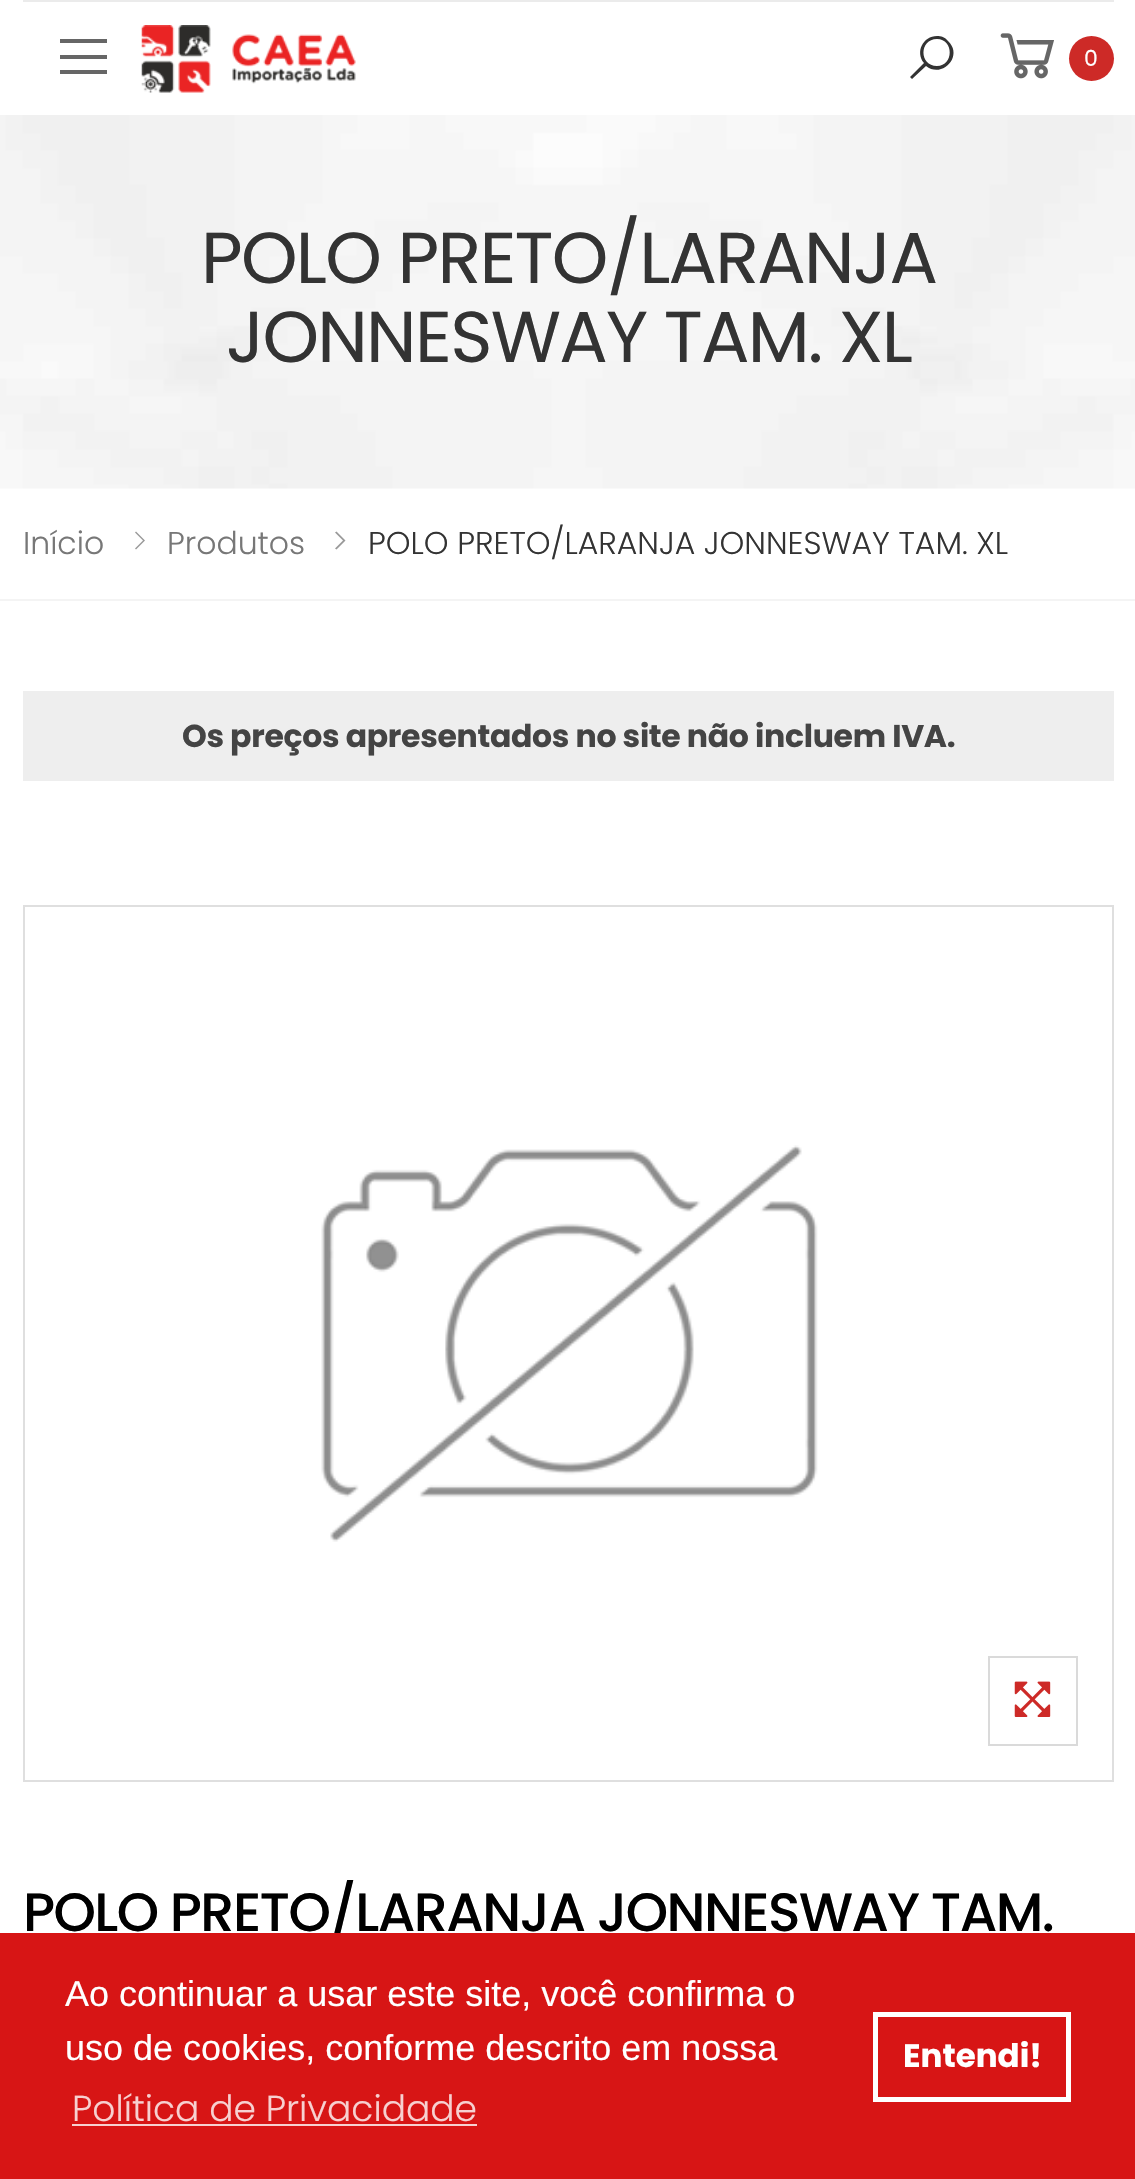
void draw(SkCanvas* canvas) {
	SkPaint fill;
	fill.setAntiAlias(true);
	auto makeFont = [&](const char* family, int weight, float size, bool italic = false) {
		SkFontStyle style(weight, SkFontStyle::kNormal_Width,
			italic ? SkFontStyle::kItalic_Slant : SkFontStyle::kUpright_Slant);
		SkFont result(fontMgr->matchFamilyStyle(family, style), size);
		result.setSubpixel(true);
		return result;
	};
	auto text = [&](const char* s, float x, float y, const SkFont& font) {
		canvas->drawString(s, x, y, font, fill);
	};
	auto spacedText = [&](const char* s, float x, float y, const SkFont& font, const SkPaint& ink, float letter, float word) {
		std::vector<SkGlyphID> glyphs(font.countText(s, strlen(s), SkTextEncoding::kUTF8));
		std::vector<float> xs(glyphs.size());
		font.textToGlyphs(s, strlen(s), SkTextEncoding::kUTF8, glyphs);
		font.getXPos(glyphs, xs, x);
		float extra = 0;
		for (size_t i = 0; i < glyphs.size(); i++) {
			xs[i] += extra;
			extra += letter + word * (glyphs[i] == font.unicharToGlyph(' '));
		}
		canvas->drawTextBlob(SkTextBlob::MakeFromPosHGlyphs(glyphs, xs, y, font), 0, 0, ink);
	};
	auto box = [&](float l, float t, float r, float b) {
		canvas->drawRect(SkRect::MakeLTRB(l, t, r, b), fill);
	};
	auto picture = [&](const char* path, float l, float t, float r, float b) {
		auto image = SkImages::DeferredFromEncodedData(SkData::MakeFromFileName(path));
		canvas->drawImageRect(image, SkRect::MakeLTRB(l, t, r, b), SkSamplingOptions());
	};
	canvas->clear(0xFFFFFFFF);
	fill.setColor(0xFFEBEBEB);
	box(23, 0, 1114, 2);
	fill.setColor(0xFF666666);
	canvas->drawPath(SkPathBuilder().moveTo(60, 39).lineTo(107, 39).lineTo(107, 43).lineTo(60, 43).close().moveTo(60, 55).lineTo(107, 55).lineTo(107, 59).lineTo(60, 59).close().moveTo(60, 70).lineTo(107, 70).lineTo(107, 74).lineTo(60, 74).close().detach(), fill);
	picture("image0.png", 141, 25, 356, 93);
	fill.setColor(0xFF333333);
	canvas->drawPath(SkPathBuilder().moveTo(937, 36).cubicTo(941, 36, 945, 37, 948, 41).cubicTo(964, 56, 942, 79, 926, 66).lineTo(912, 79).lineTo(910, 77).lineTo(924, 63).cubicTo(915, 52, 923, 36, 937, 36).close().moveTo(937, 39).cubicTo(919, 39, 919, 66, 937, 66).cubicTo(954, 66, 954, 39, 937, 39).close().detach(), fill);
	picture("image1.png", 1000, 33, 1054, 79);
	fill.setColor(0xFFCD2A27);
	canvas->drawCircle(1091.5f, 58.5f, 22.5f, fill);
	picture("image2.png", 0, 115, 1135, 489);
	fill.setColor(0xFFF4F4F4);
	box(0, 599, 1135, 601);
	fill.setColor(0xFF999999);
	canvas->drawPath(SkPathBuilder().moveTo(136, 531.5f).lineTo(145, 540.5f).lineTo(136, 549.5f).lineTo(135, 548.5f).lineTo(143, 540.5f).lineTo(135, 532.5f).close().detach(), fill);
	canvas->drawPath(SkPathBuilder().moveTo(336.5f, 531.5f).lineTo(345.5f, 540.5f).lineTo(336.5f, 549.5f).lineTo(335, 548.5f).lineTo(343, 540.5f).lineTo(335, 532.5f).close().detach(), fill);
	fill.setColor(0xFFEEEEEE);
	box(23, 691, 1114, 781);
	fill.setStyle(SkPaint::kStroke_Style);
	fill.setStrokeWidth(2);
	fill.setColor(0xFFDFDFDF);
	canvas->drawRect(SkRect::MakeLTRB(24, 906, 1113, 1781), fill);
	picture("image3.png", 321, 1145, 818, 1542);
	fill.setColor(0xFFDADADA);
	canvas->drawRect(SkRect::MakeLTRB(989, 1657, 1077, 1745), fill);
	picture("image4.png", 1014, 1681, 1051, 1717);
	auto font1 = makeFont("Poppins", 400, 22);
	fill.setStyle(SkPaint::kFill_Style);
	fill.setColor(0xFFFFFFFF);
	text("0", 1084, 66, font1);
	auto font2 = makeFont("Poppins", 400, 72);
	fill.setColor(0xFF333333);
	spacedText("POLO PRETO/LARANJA", 201, 283, font2, fill, -1.75f, 0);
	spacedText("JONNESWAY TAM. XL", 226, 362, font2, fill, -1.75f, 0);
	auto font3 = makeFont("Poppins", 300, 31.5f);
	fill.setColor(0xFF777777);
	text("Início", 23, 554, font3);
	text("Produtos", 167, 554, font3);
	fill.setColor(0xFF333333);
	text("POLO PRETO/LARANJA JONNESWAY TAM. XL", 368, 554, font3);
	auto font4 = makeFont("Poppins", 700, 31.5f);
	fill.setColor(0xFF444444);
	spacedText("Os preços apresentados no site não incluem IVA.", 182, 747, font4, fill, -0.3f, 0);
	auto font5 = makeFont("Poppins", 500, 54);
	fill.setColor(0xFF000000);
	spacedText("POLO PRETO/LARANJA JONNESWAY TAM.", 23, 1931, font5, fill, -1.6f, 0);
	fill.setColor(0xFFD71515);
	box(0, 1933, 1135, 2179);
	auto font6 = makeFont("Liberation Sans", 400, 36);
	fill.setColor(0xFFFFFFFF);
	text("Ao continuar a usar este site, você confirma o", 65, 2006, font6);
	text("uso de cookies, conforme descrito em nossa", 65, 2060, font6);
	auto font7 = makeFont("Poppins", 300, 36);
	fill.setColor(0xFFF7D0D0);
	text("Política de Privacidade", 72, 2121, font7);
	box(72, 2124, 477, 2126);
	fill.setStyle(SkPaint::kStroke_Style);
	fill.setStrokeWidth(5);
	fill.setColor(0xFFFFFFFF);
	canvas->drawRect(SkRect::MakeLTRB(875.5f, 2014.5f, 1068.5f, 2099.5f), fill);
	auto font8 = makeFont("Poppins", 700, 32.5f);
	fill.setStyle(SkPaint::kFill_Style);
	text("Entendi!", 903, 2067, font8);
}
